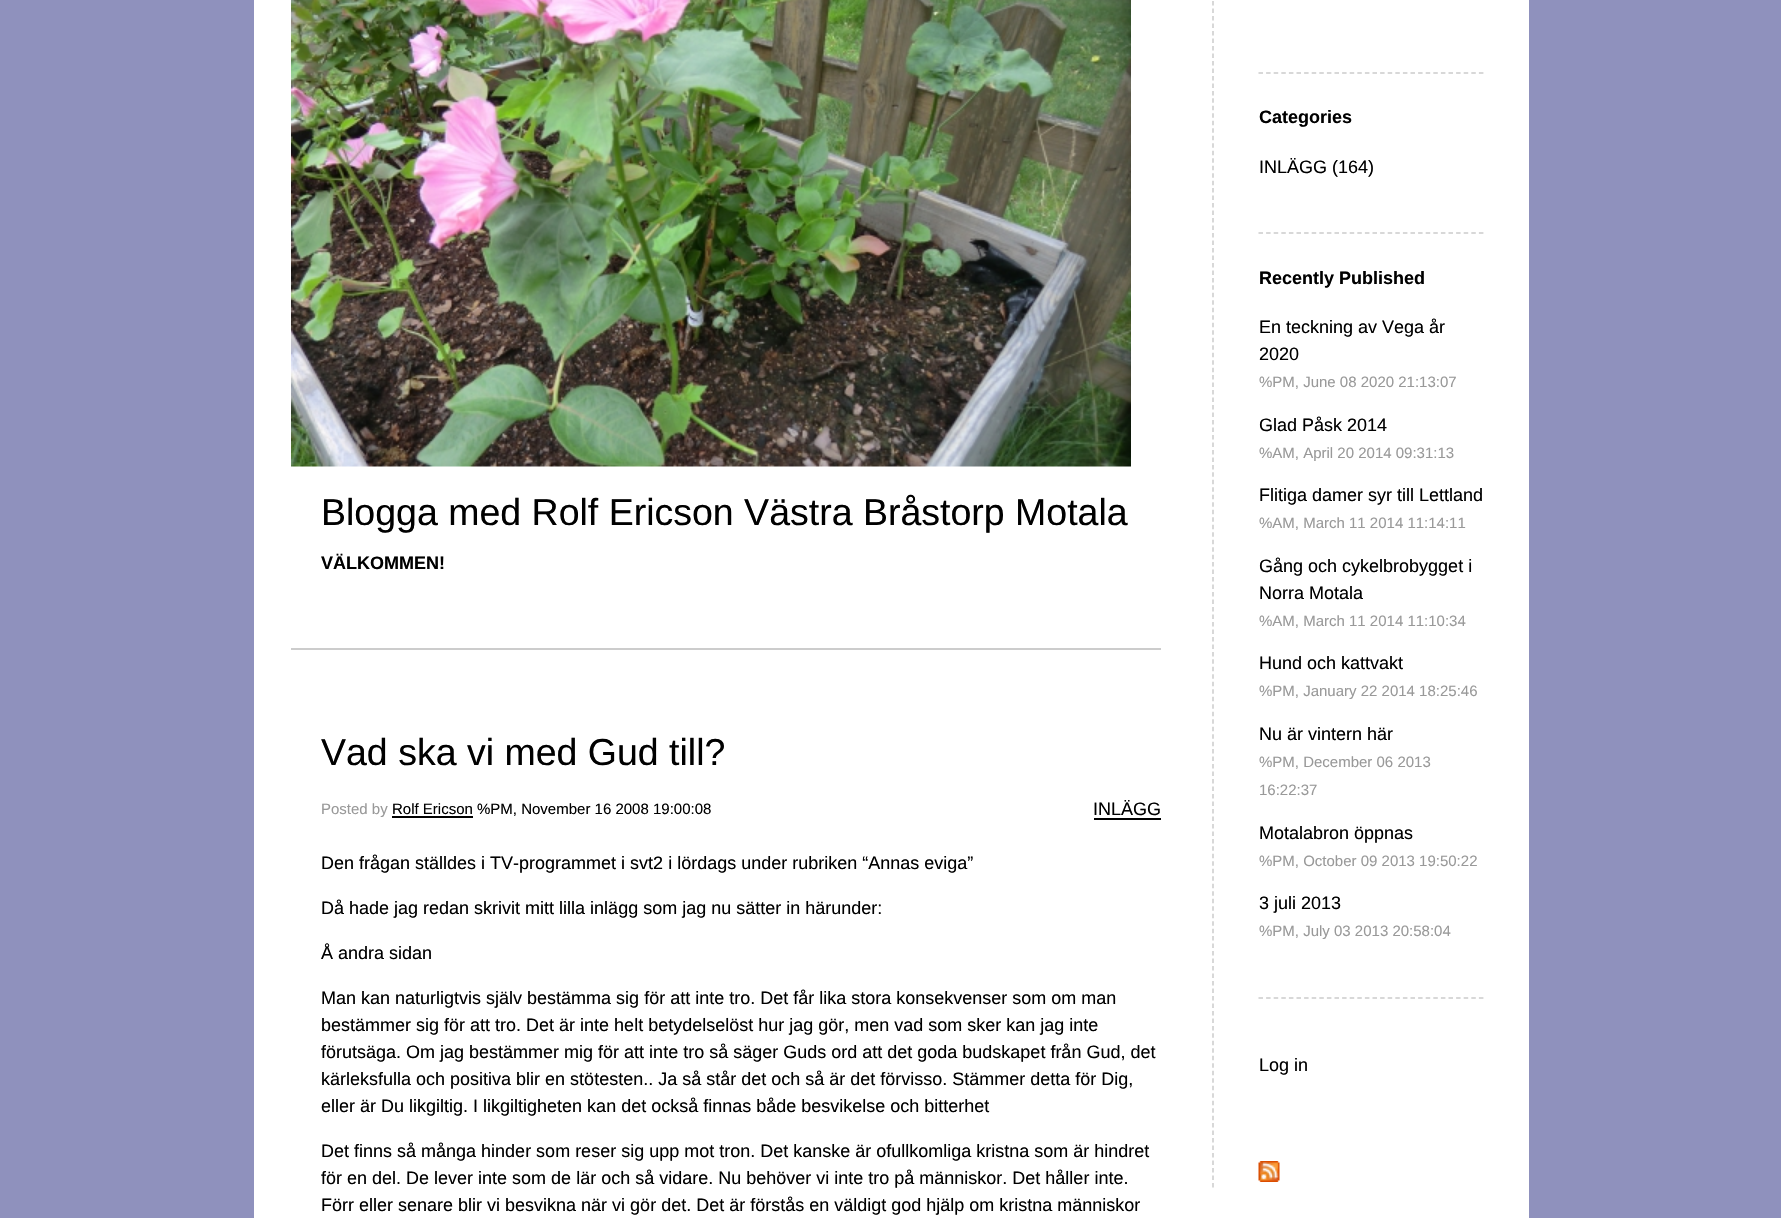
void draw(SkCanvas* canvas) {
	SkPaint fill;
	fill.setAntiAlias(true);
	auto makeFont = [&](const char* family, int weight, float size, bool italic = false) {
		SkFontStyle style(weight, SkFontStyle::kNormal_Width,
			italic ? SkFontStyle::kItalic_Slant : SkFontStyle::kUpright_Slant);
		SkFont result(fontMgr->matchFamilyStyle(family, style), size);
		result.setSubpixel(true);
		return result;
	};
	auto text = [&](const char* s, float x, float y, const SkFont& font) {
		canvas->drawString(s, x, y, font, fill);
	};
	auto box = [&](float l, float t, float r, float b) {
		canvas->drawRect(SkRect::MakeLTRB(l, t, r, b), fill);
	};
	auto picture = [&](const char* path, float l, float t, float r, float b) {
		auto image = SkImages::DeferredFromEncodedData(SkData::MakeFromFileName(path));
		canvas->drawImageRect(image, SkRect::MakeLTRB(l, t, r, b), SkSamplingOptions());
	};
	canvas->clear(0xFF8F91BD);
	fill.setColor(0xFFFFFFFF);
	box(254, 0, 1529, 1218);
	picture("image0.png", 291, 0, 1131, 467);
	fill.setStyle(SkPaint::kStroke_Style);
	fill.setStrokeWidth(1.5f);
	fill.setColor(0xFFCCCCCC);
	fill.setPathEffect(SkDashPathEffect::Make({{4.5f, 2.98f}}, 0));
	canvas->drawPath(SkPathBuilder().moveTo(1213, -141).lineTo(1213, 1189.5f).detach(), fill);
	fill.setPathEffect(nullptr);
	fill.setPathEffect(SkDashPathEffect::Make({{4.5f, 3.1f}}, 0));
	canvas->drawPath(SkPathBuilder().moveTo(1258.5f, 73).lineTo(1483.5f, 73).detach(), fill);
	fill.setPathEffect(nullptr);
	fill.setPathEffect(SkDashPathEffect::Make({{4.5f, 3.1f}}, 0));
	canvas->drawPath(SkPathBuilder().moveTo(1258.5f, 233).lineTo(1483.5f, 233).detach(), fill);
	fill.setPathEffect(nullptr);
	fill.setPathEffect(SkDashPathEffect::Make({{4.5f, 3.1f}}, 0));
	canvas->drawPath(SkPathBuilder().moveTo(1258.5f, 998).lineTo(1483.5f, 998).detach(), fill);
	fill.setPathEffect(nullptr);
	picture("image1.png", 1258, 1161, 1280, 1182);
	fill.setStyle(SkPaint::kFill_Style);
	box(291, 648, 1161, 650);
	fill.setColor(0xFF000000);
	box(392, 816, 473, 818);
	box(1094, 818, 1161, 820);
	auto font1 = makeFont("Liberation Sans", 700, 18);
	text("Categories", 1259, 123, font1);
	auto font2 = makeFont("Liberation Sans", 400, 18);
	text("INLÄGG (164)", 1259, 173, font2);
	text("Recently Published", 1259, 284, font1);
	text("En teckning av Vega år", 1259, 333, font2);
	text("2020", 1259, 360, font2);
	auto font3 = makeFont("Liberation Sans", 400, 15);
	fill.setColor(0xFF999999);
	text("%PM, June 08 2020 21:13:07", 1259, 387, font3);
	fill.setColor(0xFF000000);
	text("Glad Påsk 2014", 1259, 431, font2);
	fill.setColor(0xFF999999);
	text("%AM, April 20 2014 09:31:13", 1259, 458, font3);
	fill.setColor(0xFF000000);
	text("Flitiga damer syr till Lettland", 1259, 501, font2);
	fill.setColor(0xFF999999);
	text("%AM, March 11 2014 11:14:11", 1259, 528, font3);
	fill.setColor(0xFF000000);
	text("Gång och cykelbrobygget i", 1259, 572, font2);
	text("Norra Motala", 1259, 599, font2);
	fill.setColor(0xFF999999);
	text("%AM, March 11 2014 11:10:34", 1259, 626, font3);
	fill.setColor(0xFF000000);
	text("Hund och kattvakt", 1259, 669, font2);
	fill.setColor(0xFF999999);
	text("%PM, January 22 2014 18:25:46", 1259, 696, font3);
	fill.setColor(0xFF000000);
	text("Nu är vintern här", 1259, 740, font2);
	fill.setColor(0xFF999999);
	text("%PM, December 06 2013", 1259, 767, font3);
	text("16:22:37", 1259, 795, font3);
	fill.setColor(0xFF000000);
	text("Motalabron öppnas", 1259, 839, font2);
	fill.setColor(0xFF999999);
	text("%PM, October 09 2013 19:50:22", 1259, 866, font3);
	fill.setColor(0xFF000000);
	text("3 juli 2013", 1259, 909, font2);
	fill.setColor(0xFF999999);
	text("%PM, July 03 2013 20:58:04", 1259, 936, font3);
	fill.setColor(0xFF000000);
	text("Log in", 1259, 1071, font2);
	auto font4 = makeFont("Liberation Sans", 400, 37.5f);
	text("Blogga med Rolf Ericson Västra Bråstorp Motala", 321, 525, font4);
	text("VÄLKOMMEN!", 321, 569, font1);
	text("Vad ska vi med Gud till?", 321, 765, font4);
	fill.setColor(0xFF999999);
	text("Posted by", 321, 814, font3);
	fill.setColor(0xFF000000);
	text("Rolf Ericson %PM, November 16 2008 19:00:08", 392, 814, font3);
	text("INLÄGG", 1093, 815, font2);
	text("Den frågan ställdes i TV-programmet i svt2 i lördags under rubriken “Annas eviga”", 321, 869, font2);
	text("Då hade jag redan skrivit mitt lilla inlägg som jag nu sätter in härunder:", 321, 914, font2);
	text("Å andra sidan", 321, 959, font2);
	text("Man kan naturligtvis själv bestämma sig för att inte tro. Det får lika stora konsekvenser som om man", 321, 1004, font2);
	text("bestämmer sig för att tro. Det är inte helt betydelselöst hur jag gör, men vad som sker kan jag inte", 321, 1031, font2);
	text("förutsäga. Om jag bestämmer mig för att inte tro så säger Guds ord att det goda budskapet från Gud, det", 321, 1058, font2);
	text("kärleksfulla och positiva blir en stötesten.. Ja så står det och så är det förvisso. Stämmer detta för Dig,", 321, 1085, font2);
	text("eller är Du likgiltig. I likgiltigheten kan det också finnas både besvikelse och bitterhet", 321, 1112, font2);
	text("Det finns så många hinder som reser sig upp mot tron. Det kanske är ofullkomliga kristna som är hindret", 321, 1157, font2);
	text("för en del. De lever inte som de lär och så vidare. Nu behöver vi inte tro på människor. Det håller inte.", 321, 1184, font2);
	text("Förr eller senare blir vi besvikna när vi gör det. Det är förstås en väldigt god hjälp om kristna människor", 321, 1211, font2);
}
